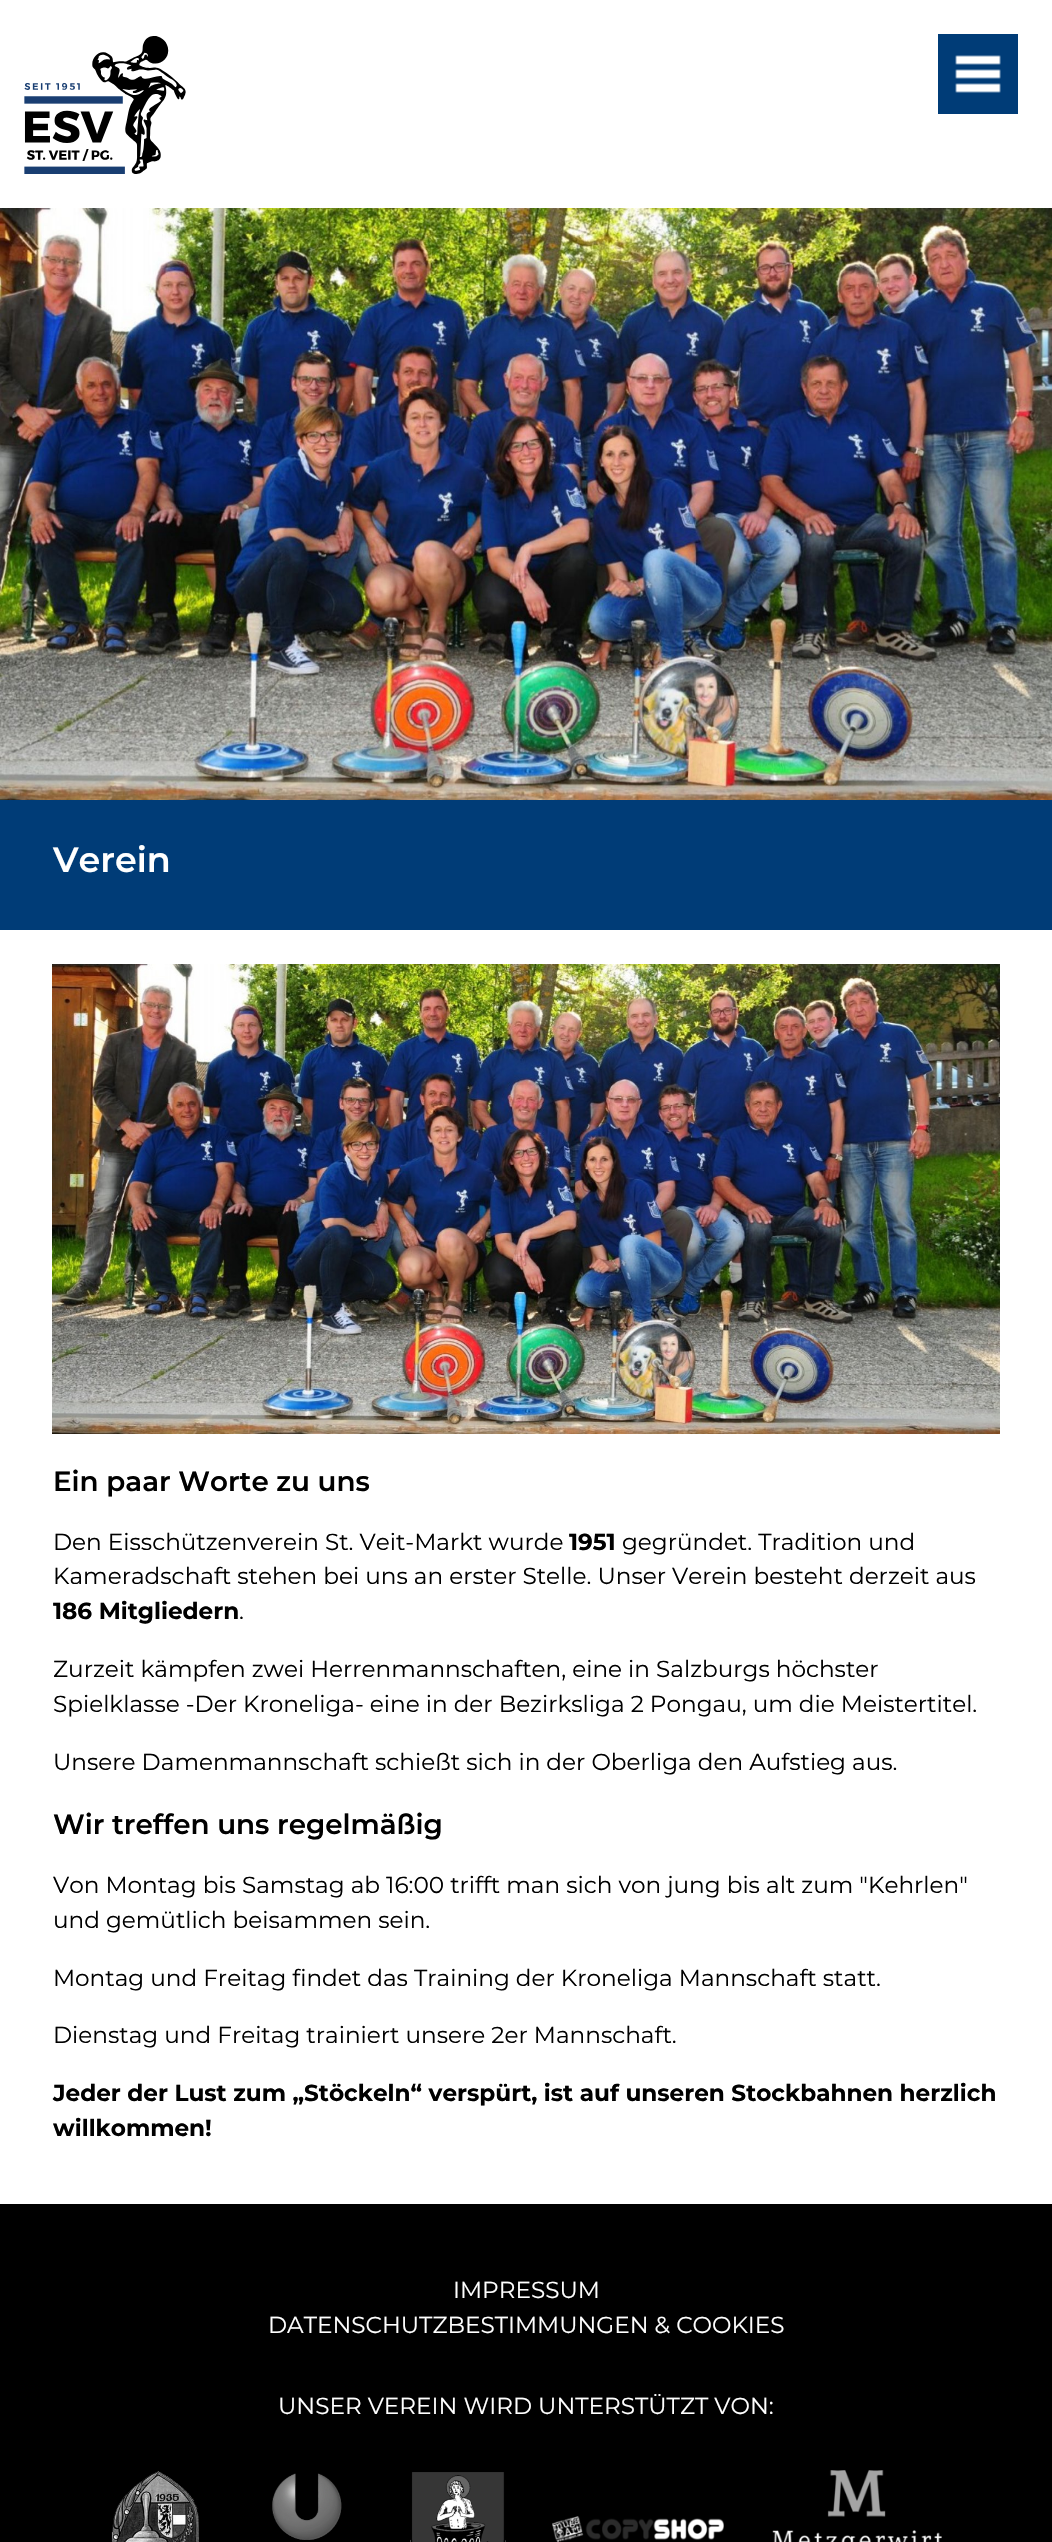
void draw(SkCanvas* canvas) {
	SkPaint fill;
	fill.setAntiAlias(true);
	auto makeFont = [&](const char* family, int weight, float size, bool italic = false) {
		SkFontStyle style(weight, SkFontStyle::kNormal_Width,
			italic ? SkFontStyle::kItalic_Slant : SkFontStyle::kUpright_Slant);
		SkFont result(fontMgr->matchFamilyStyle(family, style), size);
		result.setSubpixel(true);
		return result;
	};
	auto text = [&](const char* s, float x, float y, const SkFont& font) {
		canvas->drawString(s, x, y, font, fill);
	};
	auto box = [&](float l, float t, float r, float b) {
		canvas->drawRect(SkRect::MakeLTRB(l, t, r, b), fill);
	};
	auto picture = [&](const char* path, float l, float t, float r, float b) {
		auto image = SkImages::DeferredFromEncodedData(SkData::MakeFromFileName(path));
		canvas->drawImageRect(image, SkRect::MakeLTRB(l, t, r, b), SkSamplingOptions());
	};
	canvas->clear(0xFF003C77);
	fill.setColor(0xFFFFFFFF);
	box(0, 0, 1052, 208);
	fill.setColor(0xFF003C77);
	box(938, 34, 1018, 114);
	picture("image0.png", 955, 55, 1001, 93);
	picture("image1.png", 24, 36, 186, 174);
	picture("image2.png", 0, 208, 1052, 800);
	fill.setColor(0xFFFFFFFF);
	box(0, 930, 1052, 2204);
	picture("image3.png", 52, 964, 1000, 1434);
	fill.setColor(0xFF000000);
	box(0, 2204, 1052, 2542);
	picture("image4.png", 111, 2471, 199, 2542);
	picture("image5.png", 272, 2473, 342, 2540);
	picture("image6.png", 410, 2472, 506, 2542);
	picture("image7.png", 552, 2516, 724, 2542);
	picture("image8.png", 772, 2470, 942, 2542);
	auto font1 = makeFont("Montserrat", 600, 35);
	fill.setColor(0xFFFFFFFF);
	text("Verein", 53, 872, font1);
	auto font2 = makeFont("Montserrat", 600, 27.75f);
	fill.setColor(0xFF000000);
	text("Ein paar Worte zu uns", 53, 1491, font2);
	auto font3 = makeFont("Montserrat", 400, 23.15f);
	text("Den Eisschützenverein St. Veit-Markt wurde", 53, 1550, font3);
	auto font4 = makeFont("Montserrat", 700, 23.15f);
	text("1951", 569, 1550, font4);
	text("gegründet. Tradition und", 622, 1550, font3);
	text("Kameradschaft stehen bei uns an erster Stelle. Unser Verein besteht derzeit aus", 53, 1584, font3);
	text("186 Mitgliedern", 53, 1619, font4);
	text(".", 239, 1619, font3);
	text("Zurzeit kämpfen zwei Herrenmannschaften, eine in Salzburgs höchster", 53, 1677, font3);
	text("Spielklasse -Der Kroneliga- eine in der Bezirksliga 2 Pongau, um die Meistertitel.", 53, 1712, font3);
	text("Unsere Damenmannschaft schießt sich in der Oberliga den Aufstieg aus.", 53, 1770, font3);
	text("Wir treffen uns regelmäßig", 53, 1834, font2);
	text("Von Montag bis Samstag ab 16:00 trifft man sich von jung bis alt zum \"Kehrlen\"", 53, 1893, font3);
	text("und gemütlich beisammen sein.", 53, 1928, font3);
	text("Montag und Freitag findet das Training der Kroneliga Mannschaft statt.", 53, 1986, font3);
	text("Dienstag und Freitag trainiert unsere 2er Mannschaft.", 53, 2043, font3);
	text("Jeder der Lust zum „Stöckeln“ verspürt, ist auf unseren Stockbahnen herzlich", 53, 2101, font4);
	text("willkommen!", 53, 2136, font4);
	fill.setColor(0xFFFFFFFF);
	text("IMPRESSUM", 453, 2298, font3);
	text("DATENSCHUTZBESTIMMUNGEN & COOKIES", 268, 2333, font3);
	text("UNSER VEREIN WIRD UNTERSTÜTZT VON:", 278, 2414, font3);
}
